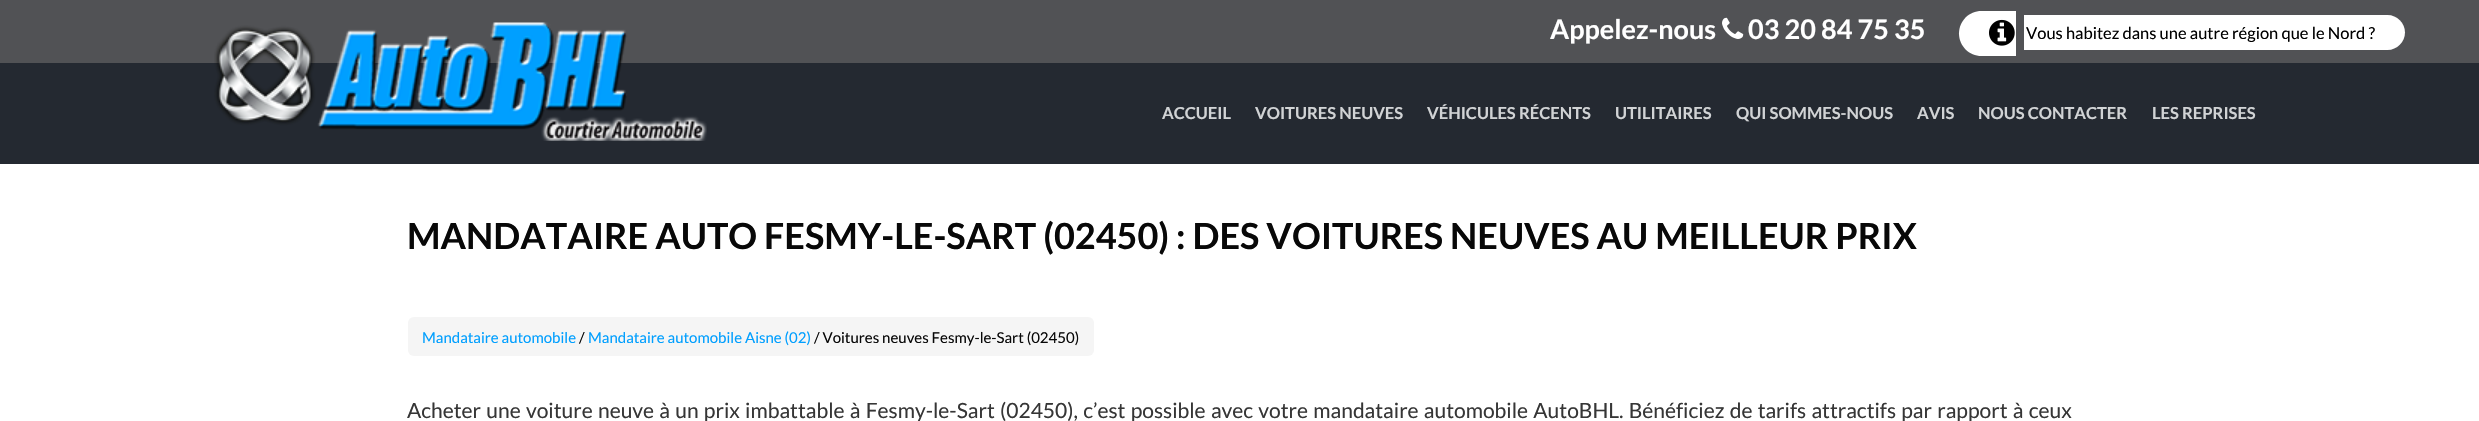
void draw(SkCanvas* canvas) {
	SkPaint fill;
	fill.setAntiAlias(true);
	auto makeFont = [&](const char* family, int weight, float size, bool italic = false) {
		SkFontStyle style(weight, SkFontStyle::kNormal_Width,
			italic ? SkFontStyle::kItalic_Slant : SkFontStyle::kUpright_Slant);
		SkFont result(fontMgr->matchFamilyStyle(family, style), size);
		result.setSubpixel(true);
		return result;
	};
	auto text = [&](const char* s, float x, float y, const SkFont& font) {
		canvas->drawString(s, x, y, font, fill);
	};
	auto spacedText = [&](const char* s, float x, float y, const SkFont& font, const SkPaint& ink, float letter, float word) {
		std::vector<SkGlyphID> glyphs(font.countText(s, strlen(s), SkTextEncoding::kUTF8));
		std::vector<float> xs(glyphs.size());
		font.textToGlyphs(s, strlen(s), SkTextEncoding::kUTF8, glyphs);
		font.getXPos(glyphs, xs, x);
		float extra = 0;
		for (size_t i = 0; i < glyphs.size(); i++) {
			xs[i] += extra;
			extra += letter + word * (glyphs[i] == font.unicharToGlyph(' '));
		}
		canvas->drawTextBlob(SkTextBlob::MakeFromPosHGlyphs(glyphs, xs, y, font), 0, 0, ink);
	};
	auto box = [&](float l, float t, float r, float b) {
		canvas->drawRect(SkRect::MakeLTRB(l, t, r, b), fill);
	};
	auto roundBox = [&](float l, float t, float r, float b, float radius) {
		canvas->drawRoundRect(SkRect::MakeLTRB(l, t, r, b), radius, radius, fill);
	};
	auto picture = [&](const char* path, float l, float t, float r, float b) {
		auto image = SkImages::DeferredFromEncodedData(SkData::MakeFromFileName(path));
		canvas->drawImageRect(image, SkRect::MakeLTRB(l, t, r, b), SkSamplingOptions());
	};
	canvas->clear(0xFF515255);
	picture("image0.png", 1722, 17, 1744, 39);
	fill.setColor(0xFFFFFFFF);
	canvas->drawPath(SkPathBuilder().moveTo(1981.5f, 11).lineTo(2016, 11).lineTo(2016, 56).lineTo(1981.5f, 56).cubicTo(1969, 56, 1959, 46, 1959, 33.5f).cubicTo(1959, 21, 1969, 11, 1981.5f, 11).close().detach(), fill);
	canvas->drawPath(SkPathBuilder().moveTo(2024, 15).lineTo(2387.5f, 15).cubicTo(2397, 15, 2405, 23, 2405, 32.5f).cubicTo(2405, 42, 2397, 50, 2387.5f, 50).lineTo(2024, 50).close().detach(), fill);
	picture("image1.png", 1989, 19, 2015, 46);
	fill.setColor(0xFF242931);
	box(0, 63, 2479, 164);
	picture("image2.png", 214, 22, 707, 141);
	fill.setColor(0xFFFFFFFF);
	box(0, 164, 2479, 421);
	fill.setColor(0xFFF5F5F5);
	roundBox(408, 317, 1094, 356, 6);
	auto font1 = makeFont("Lato", 700, 27);
	fill.setColor(0xFFFFFFFF);
	text("Appelez-nous", 1550, 39, font1);
	text("03 20 84 75 35", 1748, 39, font1);
	auto font2 = makeFont("Lato", 400, 16.5f);
	fill.setColor(0xFF000000);
	text("Vous habitez dans une autre région que le Nord ?", 2026, 39, font2);
	auto font3 = makeFont("Lato", 700, 16.5f);
	fill.setColor(0xFFD1D3D5);
	text("ACCUEIL", 1162, 119, font3);
	text("VOITURES NEUVES", 1255, 119, font3);
	text("VÉHICULES RÉCENTS", 1427, 119, font3);
	text("UTILITAIRES", 1615, 119, font3);
	text("QUI SOMMES-NOUS", 1736, 119, font3);
	text("AVIS", 1917, 119, font3);
	text("NOUS CONTACTER", 1978, 119, font3);
	text("LES REPRISES", 2152, 119, font3);
	auto font4 = makeFont("Lato", 700, 36);
	fill.setColor(0xFF080808);
	text("MANDATAIRE AUTO FESMY-LE-SART (02450) : DES VOITURES NEUVES AU MEILLEUR PRIX", 407, 249, font4);
	auto font5 = makeFont("Lato", 400, 15);
	fill.setColor(0xFF009FFF);
	text("Mandataire automobile", 422, 343, font5);
	fill.setColor(0xFF080808);
	text("/", 579, 343, font5);
	fill.setColor(0xFF009FFF);
	text("Mandataire automobile Aisne (02)", 588, 343, font5);
	fill.setColor(0xFF080808);
	text("/ Voitures neuves Fesmy-le-Sart (02450)", 814, 343, font5);
	auto font6 = makeFont("Lato", 400, 21);
	fill.setColor(0xFF363636);
	spacedText("Acheter une voiture neuve à un prix imbattable à Fesmy-le-Sart (02450), c’est possible avec votre mandataire automobile AutoBHL. Bénéficiez de tarifs attractifs par rapport à ceux", 407, 418, font6, fill, 0, 1.2f);
}
